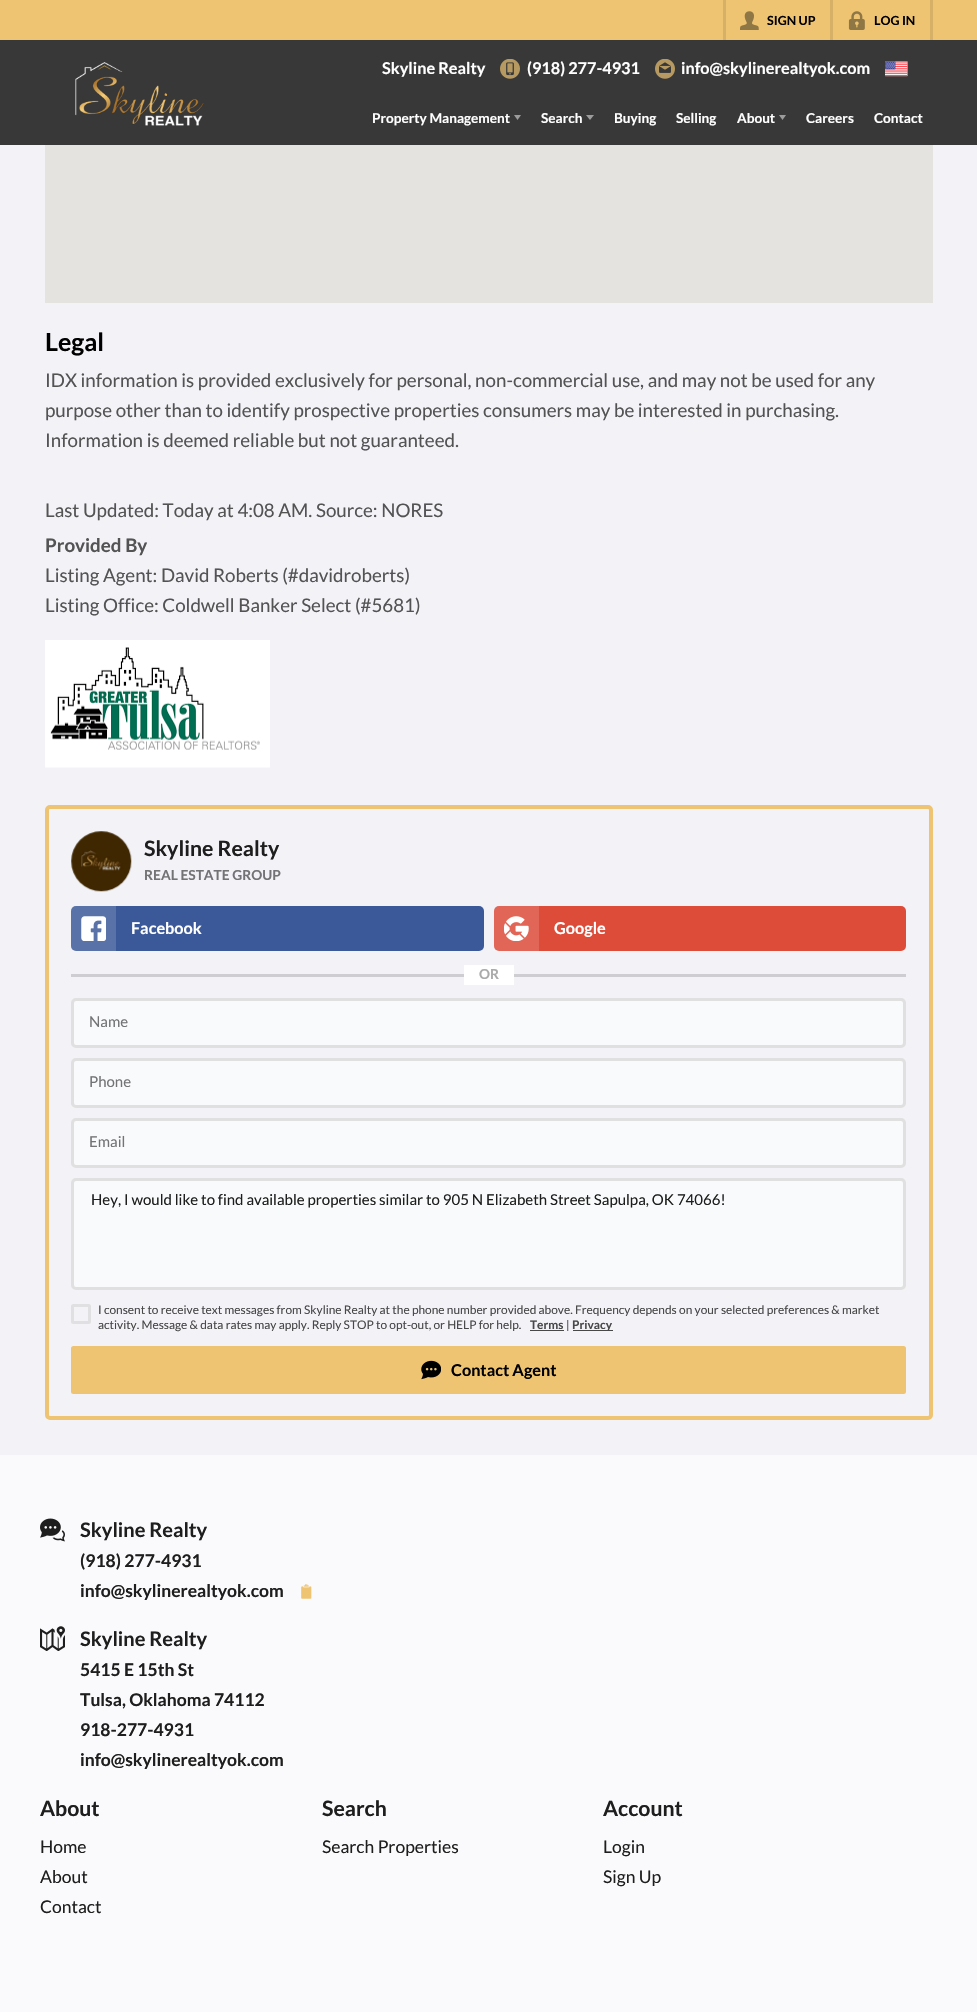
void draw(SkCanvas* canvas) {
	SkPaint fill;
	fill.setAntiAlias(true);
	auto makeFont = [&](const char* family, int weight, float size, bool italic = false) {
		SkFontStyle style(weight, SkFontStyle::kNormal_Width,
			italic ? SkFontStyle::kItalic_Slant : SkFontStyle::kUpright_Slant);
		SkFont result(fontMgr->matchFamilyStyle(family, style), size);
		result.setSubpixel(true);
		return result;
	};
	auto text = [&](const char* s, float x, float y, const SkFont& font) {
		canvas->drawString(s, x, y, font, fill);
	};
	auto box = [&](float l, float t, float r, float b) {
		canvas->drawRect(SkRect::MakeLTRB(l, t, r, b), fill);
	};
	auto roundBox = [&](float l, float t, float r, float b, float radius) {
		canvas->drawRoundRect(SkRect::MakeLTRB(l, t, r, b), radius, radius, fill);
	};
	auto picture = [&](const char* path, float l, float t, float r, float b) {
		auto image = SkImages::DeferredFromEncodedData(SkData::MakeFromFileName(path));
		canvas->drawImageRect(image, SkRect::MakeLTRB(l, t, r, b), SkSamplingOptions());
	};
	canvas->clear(0xFFFAFAFC);
	fill.setColor(0xFFEEC472);
	box(0, 0, 977, 40);
	fill.setColor(0xFFD6B067);
	box(930, 0, 933, 40);
	box(723, 0, 726, 40);
	picture("image0.png", 740, 11, 759, 30);
	box(830, 0, 833, 40);
	picture("image1.png", 848, 11, 865, 30);
	fill.setColor(0xFF383838);
	box(0, 40, 977, 145);
	picture("image2.png", 75, 62, 204, 126);
	picture("image3.png", 500, 59, 520, 79);
	picture("image4.png", 655, 59, 675, 79);
	picture("image5.png", 885, 61, 908, 77);
	fill.setColor(0xFF9C9C9C);
	canvas->drawPath(SkPathBuilder().moveTo(514, 115).lineTo(521, 115).lineTo(517.5f, 120).close().detach(), fill);
	canvas->drawPath(SkPathBuilder().moveTo(586, 115).lineTo(594, 115).lineTo(590, 120).close().detach(), fill);
	canvas->drawPath(SkPathBuilder().moveTo(779, 115).lineTo(786, 115).lineTo(782.5f, 120).close().detach(), fill);
	fill.setColor(0xFFF2F2F7);
	box(0, 145, 977, 1455);
	fill.setColor(0xFFE5E3DF);
	box(45, 145, 933, 303);
	picture("image6.png", 45, 640, 270, 768);
	fill.setStyle(SkPaint::kStroke_Style);
	fill.setStrokeWidth(4);
	fill.setColor(0xFFEEC472);
	canvas->drawRoundRect(SkRect::MakeLTRB(47, 807, 931, 1418), 3, 3, fill);
	picture("image7.png", 71, 831, 132, 892);
	fill.setStyle(SkPaint::kFill_Style);
	fill.setColor(0xFF3B5998);
	roundBox(71, 906, 484, 951, 5);
	fill.setColor(0x26FFFFFF);
	canvas->drawPath(SkPathBuilder().moveTo(76, 906).lineTo(116, 906).lineTo(116, 951).lineTo(76, 951).cubicTo(73, 951, 71, 949, 71, 946).lineTo(71, 911).cubicTo(71, 908, 73, 906, 76, 906).close().detach(), fill);
	picture("image8.png", 81, 916, 106, 941);
	fill.setColor(0xFFDD4B39);
	roundBox(494, 906, 906, 951, 5);
	fill.setColor(0x26FFFFFF);
	canvas->drawPath(SkPathBuilder().moveTo(499, 906).lineTo(539, 906).lineTo(539, 951).lineTo(499, 951).cubicTo(496, 951, 494, 949, 494, 946).lineTo(494, 911).cubicTo(494, 908, 496, 906, 499, 906).close().detach(), fill);
	picture("image9.png", 504, 916, 529, 941);
	fill.setColor(0xFFCECED2);
	box(71, 974, 906, 977);
	fill.setColor(0xFFFFFFFF);
	box(464, 965, 514, 985);
	fill.setColor(0xFFF9FAFB);
	canvas->drawRoundRect(SkRect::MakeLTRB(72.5f, 999.5f, 904.5f, 1046.5f), 3.5f, 3.5f, fill);
	fill.setStyle(SkPaint::kStroke_Style);
	fill.setStrokeWidth(3);
	fill.setColor(0xFFE0E0E0);
	canvas->drawRoundRect(SkRect::MakeLTRB(72.5f, 999.5f, 904.5f, 1046.5f), 3.5f, 3.5f, fill);
	fill.setStyle(SkPaint::kFill_Style);
	fill.setColor(0xFFF9FAFB);
	canvas->drawRoundRect(SkRect::MakeLTRB(72.5f, 1059.5f, 904.5f, 1106.5f), 3.5f, 3.5f, fill);
	fill.setStyle(SkPaint::kStroke_Style);
	fill.setColor(0xFFE0E0E0);
	canvas->drawRoundRect(SkRect::MakeLTRB(72.5f, 1059.5f, 904.5f, 1106.5f), 3.5f, 3.5f, fill);
	fill.setStyle(SkPaint::kFill_Style);
	fill.setColor(0xFFF9FAFB);
	canvas->drawRoundRect(SkRect::MakeLTRB(72.5f, 1119.5f, 904.5f, 1166.5f), 3.5f, 3.5f, fill);
	fill.setStyle(SkPaint::kStroke_Style);
	fill.setColor(0xFFE0E0E0);
	canvas->drawRoundRect(SkRect::MakeLTRB(72.5f, 1119.5f, 904.5f, 1166.5f), 3.5f, 3.5f, fill);
	fill.setStyle(SkPaint::kFill_Style);
	fill.setColor(0xFFF9FAFB);
	canvas->drawRoundRect(SkRect::MakeLTRB(72.5f, 1179.5f, 904.5f, 1288.5f), 3.5f, 3.5f, fill);
	fill.setStyle(SkPaint::kStroke_Style);
	fill.setColor(0xFFE0E0E0);
	canvas->drawRoundRect(SkRect::MakeLTRB(72.5f, 1179.5f, 904.5f, 1288.5f), 3.5f, 3.5f, fill);
	fill.setColor(0xFFE0E0E2);
	canvas->drawRoundRect(SkRect::MakeLTRB(72.5f, 1305.5f, 89.5f, 1322.5f), 1, 1, fill);
	fill.setStyle(SkPaint::kFill_Style);
	fill.setColor(0xFF484849);
	box(530, 1330, 564, 1331);
	box(573, 1330, 613, 1331);
	fill.setColor(0xFFEEC472);
	canvas->drawRoundRect(SkRect::MakeLTRB(72.5f, 1347.5f, 904.5f, 1392.5f), 1, 1, fill);
	fill.setStyle(SkPaint::kStroke_Style);
	canvas->drawRoundRect(SkRect::MakeLTRB(72.5f, 1347.5f, 904.5f, 1392.5f), 1, 1, fill);
	picture("image10.png", 421, 1360, 441, 1380);
	picture("image11.png", 40, 1518, 65, 1542);
	picture("image12.png", 301, 1584, 312, 1599);
	picture("image13.png", 40, 1626, 65, 1651);
	auto font1 = makeFont("Lato", 700, 12.5f);
	fill.setStyle(SkPaint::kFill_Style);
	fill.setColor(0xFF000000);
	text("SIGN UP", 767, 25, font1);
	text("LOG IN", 874, 25, font1);
	auto font2 = makeFont("Lato", 700, 16.25f);
	fill.setColor(0xFFFFFFFF);
	text("Skyline Realty", 382, 74, font2);
	text("(918) 277-4931", 527, 74, font2);
	text("info@skylinerealtyok.com", 681, 74, font2);
	auto font3 = makeFont("Lato", 700, 13.6f);
	text("Property Management", 372, 123, font3);
	text("Search", 541, 123, font3);
	text("Buying", 614, 123, font3);
	text("Selling", 676, 123, font3);
	text("About", 737, 123, font3);
	text("Careers", 806, 123, font3);
	text("Contact", 874, 123, font3);
	auto font4 = makeFont("Lato", 700, 25);
	fill.setColor(0xFF000000);
	text("Legal", 45, 351, font4);
	auto font5 = makeFont("Lato", 400, 18.75f);
	fill.setColor(0xFF535354);
	text("IDX information is provided exclusively for personal, non-commercial use, and may not be used for any", 45, 387, font5);
	text("purpose other than to identify prospective properties consumers may be interested in purchasing.", 45, 417, font5);
	text("Information is deemed reliable but not guaranteed.", 45, 447, font5);
	text("Last Updated: Today at 4:08 AM. Source: NORES", 45, 517, font5);
	auto font6 = makeFont("Lato", 700, 18.75f);
	text("Provided By", 45, 552, font6);
	text("Listing Agent: David Roberts (#davidroberts)", 45, 582, font5);
	text("Listing Office: Coldwell Banker Select (#5681)", 45, 612, font5);
	auto font7 = makeFont("Lato", 700, 21.25f);
	fill.setColor(0xFF1E1E1E);
	text("Skyline Realty", 144, 856, font7);
	auto font8 = makeFont("Lato", 700, 13.75f);
	fill.setColor(0xFF737375);
	text("REAL ESTATE GROUP", 144, 880, font8);
	fill.setColor(0xFFFFFFFF);
	text("Facebook", 131, 934, font2);
	text("Google", 554, 934, font2);
	fill.setColor(0xFFAAAAAA);
	text("OR", 479, 979, font8);
	auto font9 = makeFont("Lato", 400, 15);
	fill.setColor(0xFF737375);
	text("Name", 89, 1027, font9);
	text("Phone", 89, 1087, font9);
	text("Email", 89, 1147, font9);
	fill.setColor(0xFF1E1E1E);
	text("Hey, I would like to find available properties similar to 905 N Elizabeth Street Sapulpa, OK 74066!", 91, 1205, font9);
	auto font10 = makeFont("Lato", 400, 11.88f);
	fill.setColor(0xFF484849);
	text("I consent to receive text messages from Skyline Realty at the phone number provided above. Frequency depends on your selected preferences & market", 98, 1314, font10);
	text("activity. Message & data rates may apply. Reply STOP to opt-out, or HELP for help.", 98, 1329, font10);
	auto font11 = makeFont("Lato", 700, 11.88f);
	text("Terms", 530, 1329, font11);
	text("|", 566, 1329, font10);
	text("Privacy", 572, 1329, font11);
	fill.setColor(0xFF000000);
	text("Contact Agent", 451, 1376, font2);
	auto font12 = makeFont("Lato", 700, 20);
	fill.setColor(0xFF1E1E1E);
	text("Skyline Realty", 80, 1537, font12);
	auto font13 = makeFont("Lato", 700, 17.5f);
	text("(918) 277-4931", 80, 1567, font13);
	text("info@skylinerealtyok.com", 80, 1597, font13);
	text("Skyline Realty", 80, 1646, font12);
	text("5415 E 15th St", 80, 1676, font13);
	text("Tulsa, Oklahoma 74112", 80, 1706, font13);
	text("918-277-4931", 80, 1736, font13);
	text("info@skylinerealtyok.com", 80, 1766, font13);
	text("About", 40, 1816, font7);
	auto font14 = makeFont("Lato", 400, 17.5f);
	text("Home", 40, 1853, font14);
	text("About", 40, 1883, font14);
	text("Contact", 40, 1913, font14);
	text("Search", 322, 1816, font7);
	text("Search Properties", 322, 1853, font14);
	text("Account", 603, 1816, font7);
	text("Login", 603, 1853, font14);
	text("Sign Up", 603, 1883, font14);
}
